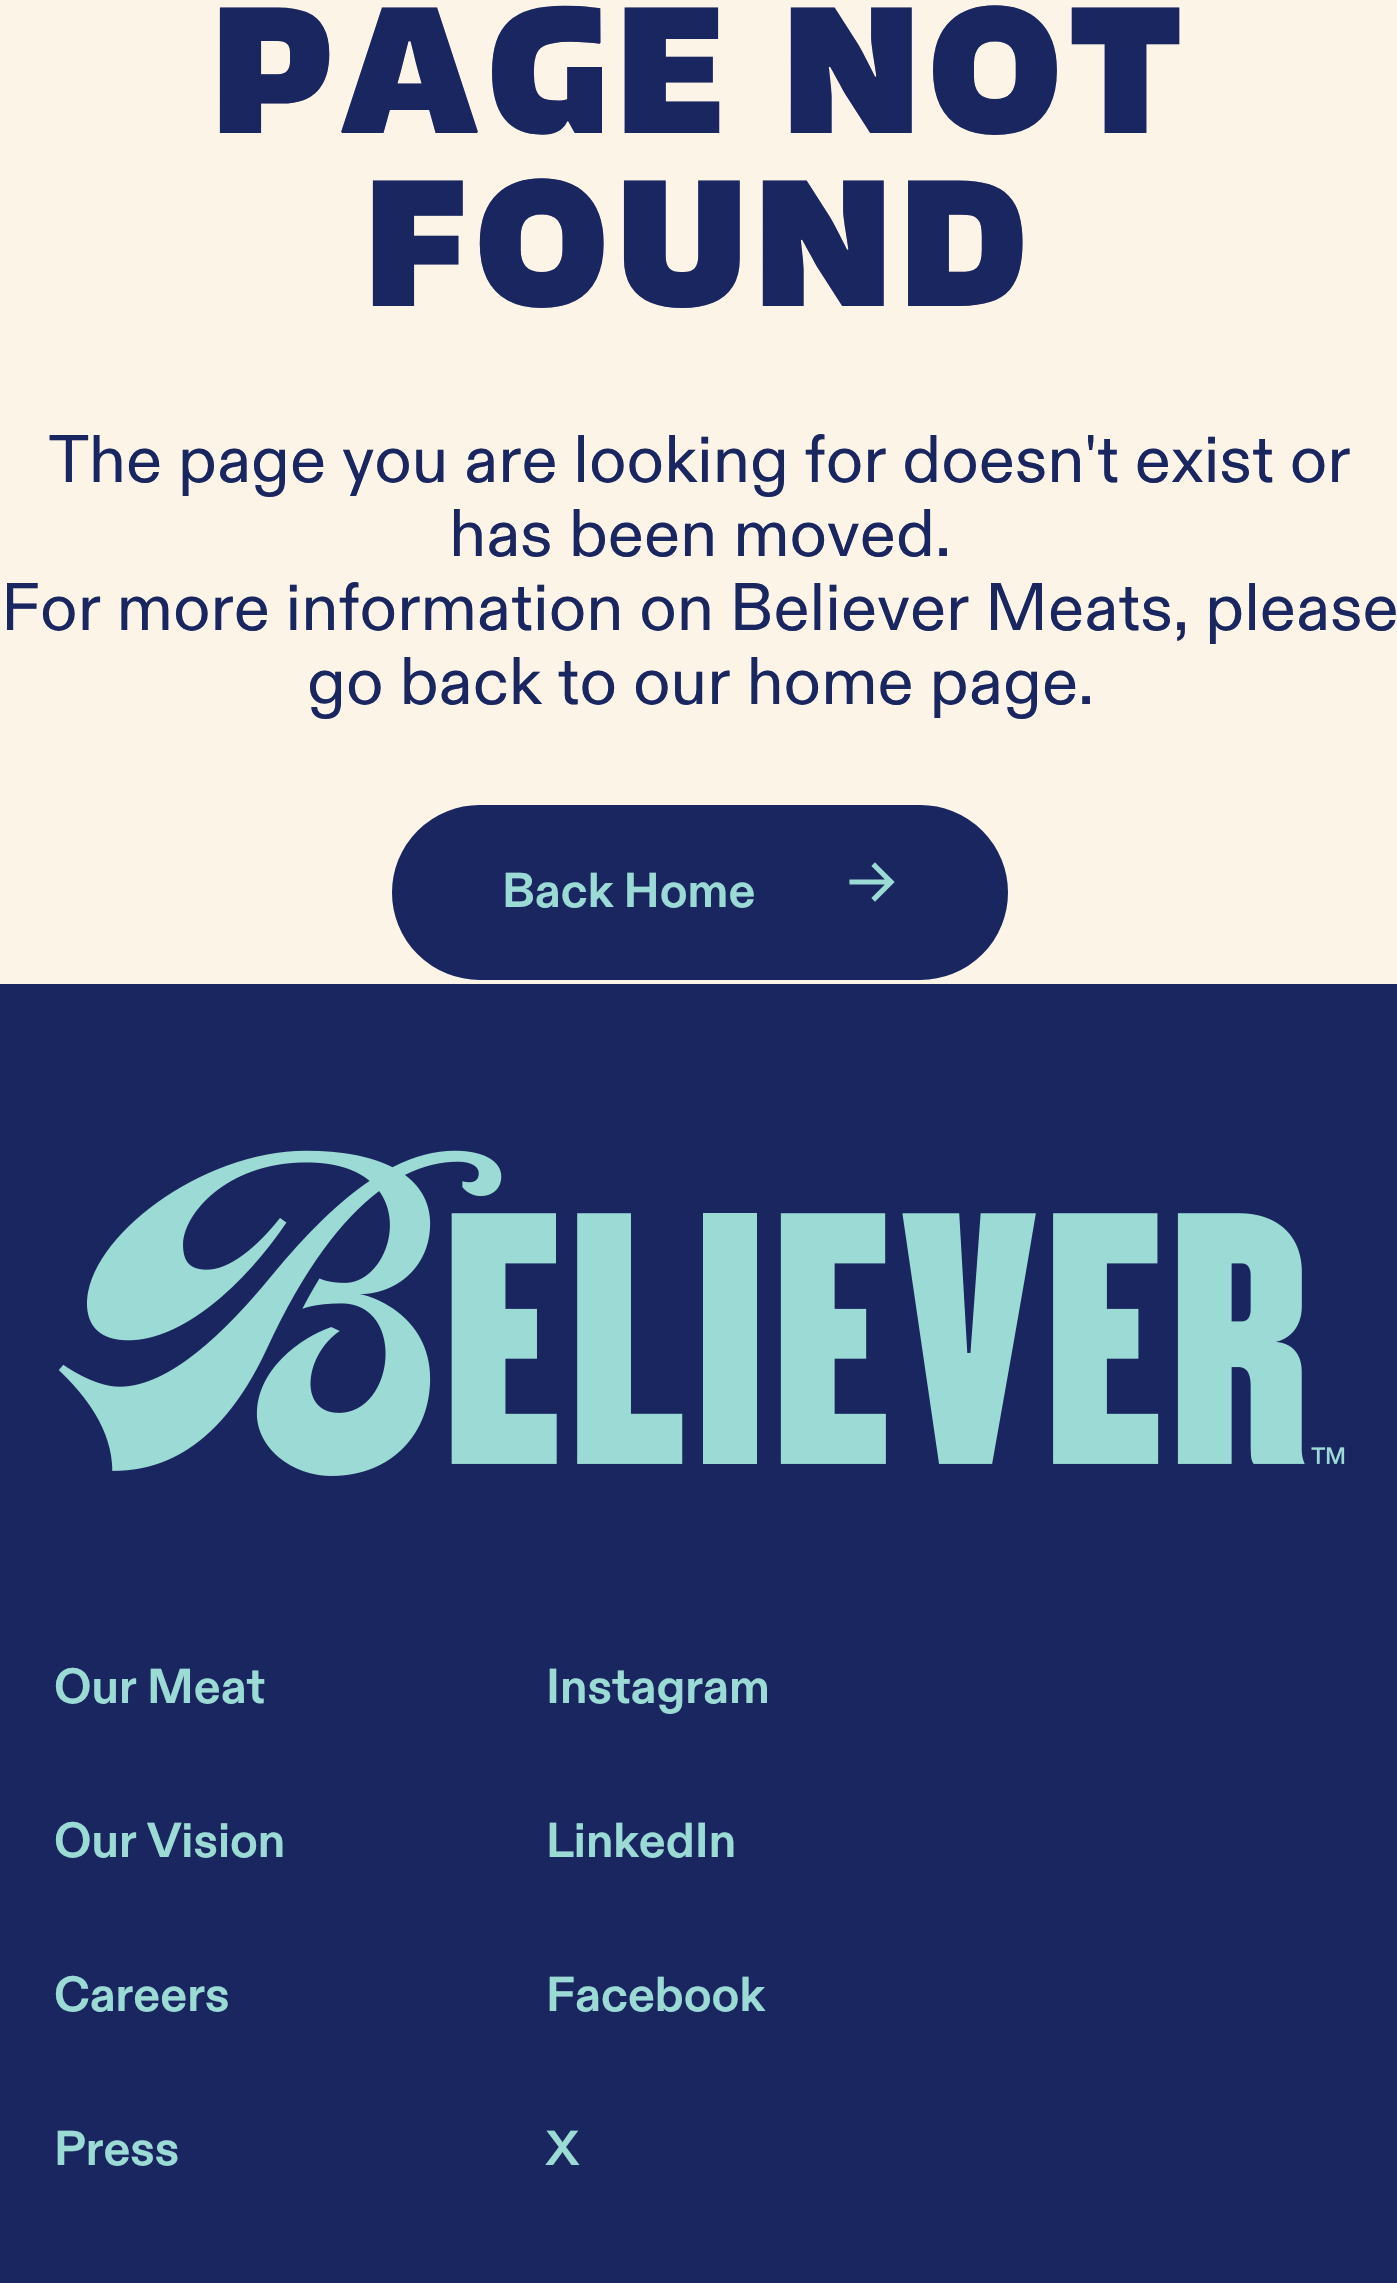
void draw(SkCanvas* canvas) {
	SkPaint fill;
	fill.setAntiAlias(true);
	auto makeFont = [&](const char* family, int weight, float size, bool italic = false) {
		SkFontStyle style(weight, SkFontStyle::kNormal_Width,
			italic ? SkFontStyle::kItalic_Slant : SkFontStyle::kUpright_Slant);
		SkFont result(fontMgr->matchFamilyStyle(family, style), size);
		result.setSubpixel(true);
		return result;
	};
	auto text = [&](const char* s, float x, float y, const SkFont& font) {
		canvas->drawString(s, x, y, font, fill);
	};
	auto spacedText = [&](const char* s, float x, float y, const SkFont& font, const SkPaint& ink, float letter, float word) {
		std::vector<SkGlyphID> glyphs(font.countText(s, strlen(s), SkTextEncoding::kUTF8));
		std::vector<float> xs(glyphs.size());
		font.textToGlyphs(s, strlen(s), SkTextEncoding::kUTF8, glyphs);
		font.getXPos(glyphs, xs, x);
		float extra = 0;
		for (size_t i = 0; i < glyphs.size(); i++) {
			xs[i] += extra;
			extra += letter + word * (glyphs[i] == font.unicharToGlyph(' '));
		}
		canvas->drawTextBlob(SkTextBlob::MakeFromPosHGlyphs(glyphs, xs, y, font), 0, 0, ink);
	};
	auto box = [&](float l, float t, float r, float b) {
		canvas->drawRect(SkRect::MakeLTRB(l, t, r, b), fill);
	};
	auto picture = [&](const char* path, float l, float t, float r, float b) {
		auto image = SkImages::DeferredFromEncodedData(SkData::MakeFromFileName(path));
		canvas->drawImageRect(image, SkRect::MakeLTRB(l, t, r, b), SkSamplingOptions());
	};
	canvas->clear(0xFFFCF5E7);
	fill.setColor(0xFF192660);
	canvas->drawRoundRect(SkRect::MakeLTRB(394, 807, 1006, 978), 85.5f, 85.5f, fill);
	fill.setStyle(SkPaint::kStroke_Style);
	fill.setStrokeWidth(4);
	canvas->drawRoundRect(SkRect::MakeLTRB(394, 807, 1006, 978), 85.5f, 85.5f, fill);
	fill.setStrokeWidth(5.2f);
	fill.setStrokeCap(SkPaint::kSquare_Cap);
	fill.setColor(0xFF9CDBD5);
	canvas->drawPath(SkPathBuilder().moveTo(852, 882).lineTo(889.5f, 882).moveTo(875, 866).lineTo(891, 882).lineTo(875, 898).detach(), fill);
	fill.setStyle(SkPaint::kFill_Style);
	fill.setColor(0xFF192660);
	box(0, 984, 1397, 2283);
	picture("image0.png", 58, 1150, 1345, 1476);
	auto font1 = makeFont("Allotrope", 800, 188);
	spacedText("PAGE NOT", 212, 133, font1, fill, 8, 0);
	spacedText("FOUND", 365, 306, font1, fill, 8, 0);
	auto font2 = makeFont("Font", 400, 67.1f);
	spacedText("The page you are looking for doesn't exist or", 49, 482, font2, fill, 0, -0.25f);
	text("has been moved.", 449, 556, font2);
	spacedText("For more information on Believer Meats, please", 1, 630, font2, fill, 0, -0.25f);
	text("go back to our home page.", 307, 704, font2);
	auto font3 = makeFont("Font", 700, 49);
	fill.setColor(0xFF9CDBD5);
	text("Back Home", 502, 907, font3);
	text("Our Meat", 54, 1703, font3);
	text("Our Vision", 54, 1857, font3);
	text("Careers", 54, 2011, font3);
	text("Press", 54, 2165, font3);
	text("Instagram", 546, 1703, font3);
	text("LinkedIn", 546, 1857, font3);
	text("Facebook", 546, 2011, font3);
	text("X", 546, 2165, font3);
}
